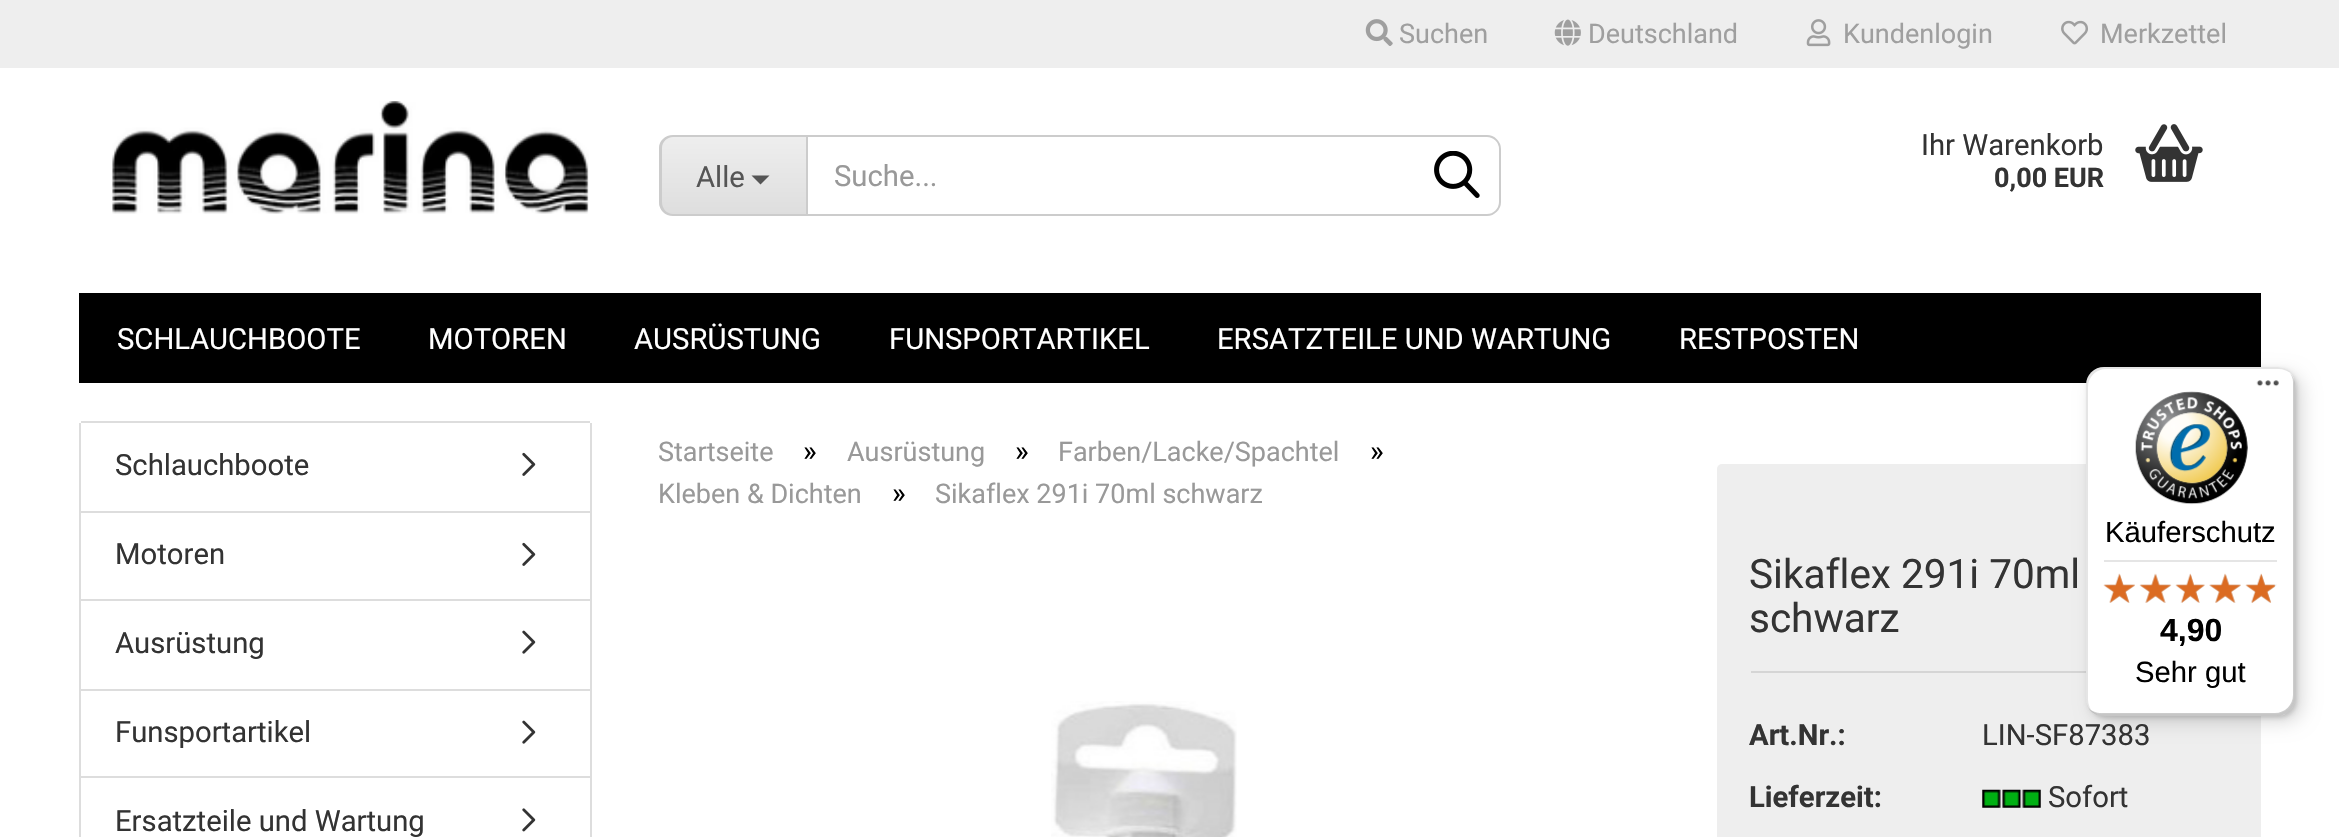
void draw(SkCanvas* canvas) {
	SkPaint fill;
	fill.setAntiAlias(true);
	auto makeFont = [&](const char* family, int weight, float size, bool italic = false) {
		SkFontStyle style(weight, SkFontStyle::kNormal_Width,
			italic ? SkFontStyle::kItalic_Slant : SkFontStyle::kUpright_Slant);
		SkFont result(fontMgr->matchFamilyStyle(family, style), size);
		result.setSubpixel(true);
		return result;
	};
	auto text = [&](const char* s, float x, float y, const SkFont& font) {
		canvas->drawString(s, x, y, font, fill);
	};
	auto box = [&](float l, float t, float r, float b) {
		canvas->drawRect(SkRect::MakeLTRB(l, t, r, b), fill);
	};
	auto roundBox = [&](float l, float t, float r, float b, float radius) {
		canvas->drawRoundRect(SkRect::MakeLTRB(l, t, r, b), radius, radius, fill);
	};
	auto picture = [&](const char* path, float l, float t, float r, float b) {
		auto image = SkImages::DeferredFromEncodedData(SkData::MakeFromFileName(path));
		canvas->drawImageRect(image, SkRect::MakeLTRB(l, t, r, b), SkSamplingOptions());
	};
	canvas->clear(0xFFFFFFFF);
	fill.setColor(0xFFEEEEEE);
	box(0, 0, 2339, 68);
	picture("image0.png", 1365, 19, 1393, 46);
	picture("image1.png", 1554, 19, 1581, 46);
	picture("image2.png", 1806, 19, 1831, 47);
	picture("image3.png", 2061, 20, 2088, 45);
	picture("image4.png", 112, 101, 589, 214);
	canvas->save();
	canvas->clipPath(SkPathBuilder().moveTo(673, 135).lineTo(806, 135).lineTo(806, 216).lineTo(673, 216).cubicTo(665.5f, 216, 659, 209.5f, 659, 202).lineTo(659, 149).cubicTo(659, 141.5f, 665.5f, 135, 673, 135).close().detach(), true);
	{
		const SkColor colors[] = {0xFFEEEEEE, 0xFFDEDEDE};
		const float stops[] = {0, 1};
		const SkPoint ends[] = {{734, 137}, {734, 214}};
		fill.setShader(SkGradientShader::MakeLinear(ends, colors, stops, 2, SkTileMode::kClamp));
		fill.setAlpha(255);
	}
	box(659, 137, 806, 214);
	canvas->restore();
	fill.setShader(nullptr);
	fill.setColor(0xFFCCCCCC);
	canvas->drawPath(SkPathBuilder(SkPathFillType::kEvenOdd).moveTo(673, 135).lineTo(806, 135).lineTo(806, 216).lineTo(673, 216).cubicTo(665, 216, 659, 210, 659, 202).lineTo(659, 148).cubicTo(659, 141, 665, 135, 673, 135).close().moveTo(673, 137).lineTo(806, 137).lineTo(806, 214).lineTo(673, 214).cubicTo(667, 214, 662, 209, 662, 202).lineTo(662, 148).cubicTo(662, 142, 667, 137, 673, 137).close().detach(), fill);
	fill.setColor(0xFF555555);
	canvas->drawPath(SkPathBuilder().moveTo(751.5f, 175.5f).lineTo(769.5f, 175.5f).lineTo(760.5f, 184.5f).close().detach(), fill);
	fill.setStyle(SkPaint::kStroke_Style);
	fill.setStrokeWidth(2);
	fill.setColor(0xFFCCCCCC);
	canvas->drawPath(SkPathBuilder().moveTo(807, 136).lineTo(1487, 136).cubicTo(1494, 136, 1500, 142, 1500, 149).lineTo(1500, 202).cubicTo(1500, 209, 1494, 215, 1487, 215).lineTo(807, 215).close().detach(), fill);
	picture("image5.png", 1434, 151, 1480, 198);
	picture("image6.png", 2135, 124, 2203, 182);
	fill.setStyle(SkPaint::kFill_Style);
	fill.setColor(0xFF000000);
	box(79, 293, 2261, 383);
	fill.setColor(0xFFDDDDDD);
	box(81, 421, 590, 423);
	box(590, 423, 592, 837);
	box(79, 423, 81, 837);
	box(81, 511, 590, 513);
	picture("image7.png", 522, 452, 536, 476);
	box(81, 599, 590, 601);
	picture("image7.png", 522, 542, 536, 566);
	box(81, 689, 590, 691);
	picture("image8.png", 522, 630, 536, 654);
	box(81, 776, 590, 778);
	picture("image8.png", 522, 720, 536, 744);
	picture("image9.png", 522, 808, 536, 832);
	picture("image10.png", 1051, 701, 1237, 837);
	fill.setColor(0xFFEEEEEE);
	roundBox(1717, 464, 2261, 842, 5);
	fill.setColor(0xFFD5D5D5);
	box(1751, 671, 2086, 673);
	picture("image11.png", 1982, 789, 2041, 808);
	fill.setColor(0x26000000);
	fill.setMaskFilter(SkMaskFilter::MakeBlur(kNormal_SkBlurStyle, 9));
	canvas->drawRoundRect(SkRect::MakeLTRB(2093, 374, 2302, 722), 18, 18, fill);
	fill.setMaskFilter(nullptr);
	fill.setMaskFilter(SkMaskFilter::MakeBlur(kNormal_SkBlurStyle, 2));
	canvas->drawRoundRect(SkRect::MakeLTRB(2088, 369, 2297, 718), 18, 18, fill);
	fill.setMaskFilter(nullptr);
	fill.setColor(0xFFFFFFFF);
	roundBox(2086, 367, 2295, 716, 18);
	fill.setColor(0x1A000000);
	canvas->drawPath(SkPathBuilder().moveTo(2106, 369).lineTo(2279, 369).cubicTo(2283, 369, 2287, 371, 2291, 373).cubicTo(2287, 369, 2282, 367, 2277, 367).lineTo(2104, 367).cubicTo(2094, 367, 2086, 375, 2086, 385).lineTo(2086, 698).cubicTo(2086, 703, 2088, 708, 2092, 712).cubicTo(2090, 708, 2088, 704, 2088, 700).lineTo(2088, 387).cubicTo(2088, 377, 2096, 369, 2106, 369).close().detach(), fill);
	fill.setColor(0x33000000);
	canvas->drawPath(SkPathBuilder().moveTo(2088, 707).cubicTo(2091, 712, 2097, 716, 2104, 716).lineTo(2277, 716).cubicTo(2287, 716, 2295, 708, 2295, 698).lineTo(2295, 385).cubicTo(2295, 380, 2293, 376, 2290, 373).cubicTo(2292, 376, 2293, 379, 2293, 382).lineTo(2293, 695).cubicTo(2293, 705, 2285, 713, 2275, 713).lineTo(2102, 713).cubicTo(2096, 713, 2091, 711, 2088, 707).close().detach(), fill);
	fill.setColor(0x33323232);
	canvas->drawPath(SkPathBuilder().moveTo(2090, 710).cubicTo(2094, 714, 2099, 716, 2104, 716).lineTo(2277, 716).cubicTo(2287, 716, 2295, 708, 2295, 698).lineTo(2295, 385).cubicTo(2295, 382, 2294, 379, 2293, 376).cubicTo(2294, 378, 2294, 381, 2294, 383).lineTo(2294, 696).cubicTo(2294, 706, 2286, 714, 2276, 714).lineTo(2102, 714).cubicTo(2098, 714, 2094, 712, 2090, 710).close().detach(), fill);
	fill.setColor(0x4DFFFFFF);
	canvas->drawPath(SkPathBuilder().moveTo(2088, 705).cubicTo(2090, 712, 2097, 716, 2104, 716).lineTo(2277, 716).cubicTo(2287, 716, 2295, 708, 2295, 698).lineTo(2295, 385).cubicTo(2295, 380, 2293, 375, 2290, 372).cubicTo(2292, 375, 2294, 379, 2294, 384).lineTo(2294, 696).cubicTo(2294, 706, 2286, 714, 2276, 714).lineTo(2103, 714).cubicTo(2096, 714, 2091, 710, 2088, 705).close().detach(), fill);
	picture("image12.png", 2256, 380, 2279, 387);
	picture("image13.png", 2135, 391, 2248, 505);
	fill.setColor(0xFFE5E5E5);
	box(2104, 560, 2277, 562);
	picture("image19.png", 2104, 574, 2135, 603);
	picture("image14.png", 2103, 573, 2135, 603);
	picture("image20.png", 2140, 574, 2171, 603);
	picture("image15.png", 2139, 573, 2172, 603);
	picture("image21.png", 2176, 574, 2205, 603);
	picture("image16.png", 2175, 573, 2205, 603);
	picture("image22.png", 2209, 574, 2241, 603);
	picture("image17.png", 2209, 573, 2241, 603);
	picture("image23.png", 2246, 574, 2277, 603);
	picture("image18.png", 2245, 573, 2275, 603);
	auto font1 = makeFont("Roboto", 400, 27);
	fill.setColor(0xFF9F9F9F);
	text("Suchen", 1399, 43, font1);
	text("Deutschland", 1588, 43, font1);
	text("Kundenlogin", 1843, 43, font1);
	text("Merkzettel", 2100, 43, font1);
	auto font2 = makeFont("Roboto", 400, 29.25f);
	fill.setColor(0xFF555555);
	text("Alle", 696, 187, font2);
	fill.setColor(0xFF999999);
	text("Suche...", 834, 186, font2);
	fill.setColor(0xFF333333);
	text("Ihr Warenkorb", 1921, 155, font2);
	auto font3 = makeFont("Roboto", 700, 27);
	text("0,00 EUR", 1994, 187, font3);
	fill.setColor(0xFFFFFFFF);
	text("SCHLAUCHBOOTE", 117, 349, font2);
	text("MOTOREN", 428, 349, font2);
	text("AUSRÜSTUNG", 634, 349, font2);
	text("FUNSPORTARTIKEL", 889, 349, font2);
	text("ERSATZTEILE UND WARTUNG", 1217, 349, font2);
	text("RESTPOSTEN", 1679, 349, font2);
	fill.setColor(0xFF333333);
	text("Schlauchboote", 115, 475, font2);
	text("Motoren", 115, 564, font2);
	text("Ausrüstung", 115, 653, font2);
	text("Funsportartikel", 115, 742, font2);
	text("Ersatzteile und Wartung", 115, 831, font2);
	fill.setColor(0xFF999999);
	text("Startseite", 658, 461, font1);
	fill.setColor(0xFF000000);
	text("»", 803, 461, font2);
	fill.setColor(0xFF999999);
	text("Ausrüstung", 847, 461, font1);
	fill.setColor(0xFF000000);
	text("»", 1015, 461, font2);
	fill.setColor(0xFF999999);
	text("Farben/Lacke/Spachtel", 1058, 461, font1);
	fill.setColor(0xFF000000);
	text("»", 1370, 461, font2);
	fill.setColor(0xFF999999);
	text("Kleben & Dichten", 658, 503, font1);
	fill.setColor(0xFF000000);
	text("»", 892, 503, font2);
	fill.setColor(0xFF999999);
	text("Sikaflex 291i 70ml schwarz", 935, 503, font1);
	auto font4 = makeFont("Roboto", 400, 40.5f);
	fill.setColor(0xFF333333);
	text("Sikaflex 291i 70ml", 1749, 588, font4);
	text("schwarz", 1749, 632, font4);
	auto font5 = makeFont("Roboto", 700, 29.25f);
	text("Art.Nr.:", 1749, 745, font5);
	text("LIN-SF87383", 1982, 745, font2);
	text("Lieferzeit:", 1749, 807, font5);
	text("Sofort", 2048, 807, font2);
	auto font6 = makeFont("Liberation Sans", 400, 29.25f);
	fill.setColor(0xFF000000);
	text("Käuferschutz", 2105, 542, font6);
	auto font7 = makeFont("Liberation Sans", 700, 32);
	text("4,90", 2160, 641, font7);
	text("Sehr gut", 2135, 682, font6);
}
